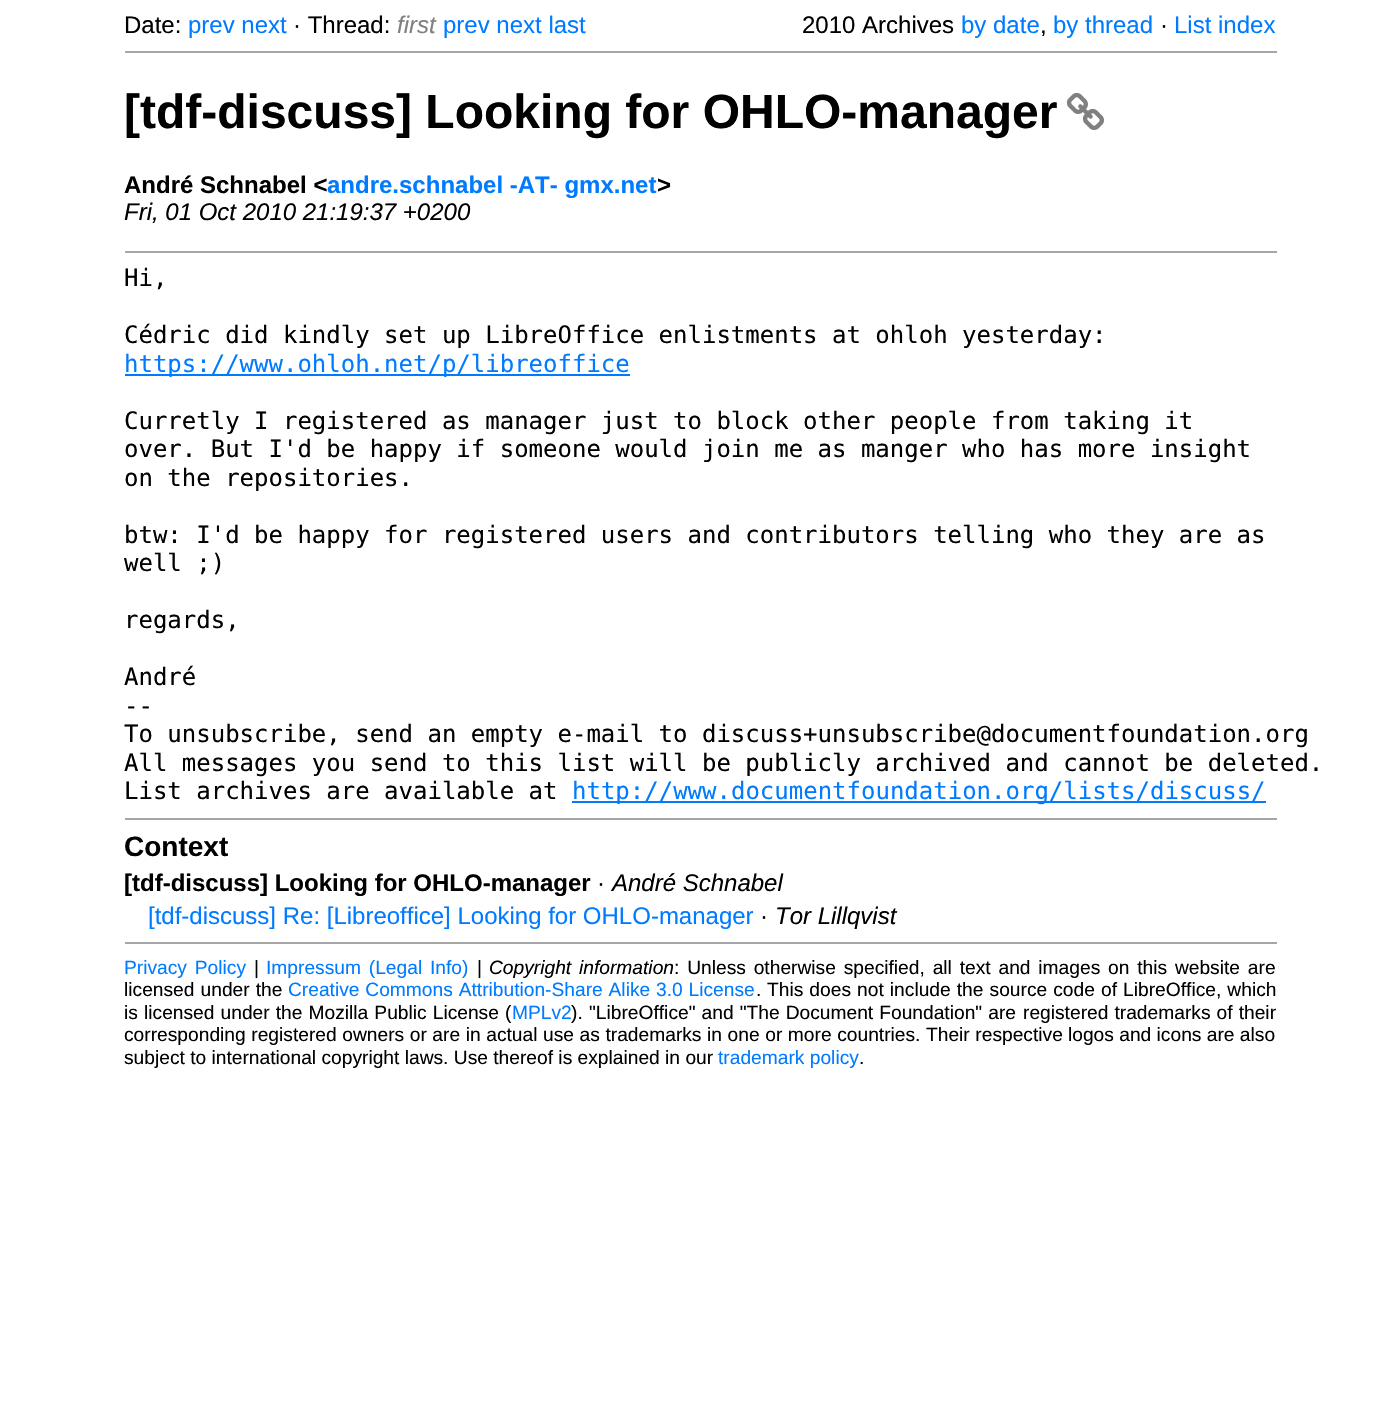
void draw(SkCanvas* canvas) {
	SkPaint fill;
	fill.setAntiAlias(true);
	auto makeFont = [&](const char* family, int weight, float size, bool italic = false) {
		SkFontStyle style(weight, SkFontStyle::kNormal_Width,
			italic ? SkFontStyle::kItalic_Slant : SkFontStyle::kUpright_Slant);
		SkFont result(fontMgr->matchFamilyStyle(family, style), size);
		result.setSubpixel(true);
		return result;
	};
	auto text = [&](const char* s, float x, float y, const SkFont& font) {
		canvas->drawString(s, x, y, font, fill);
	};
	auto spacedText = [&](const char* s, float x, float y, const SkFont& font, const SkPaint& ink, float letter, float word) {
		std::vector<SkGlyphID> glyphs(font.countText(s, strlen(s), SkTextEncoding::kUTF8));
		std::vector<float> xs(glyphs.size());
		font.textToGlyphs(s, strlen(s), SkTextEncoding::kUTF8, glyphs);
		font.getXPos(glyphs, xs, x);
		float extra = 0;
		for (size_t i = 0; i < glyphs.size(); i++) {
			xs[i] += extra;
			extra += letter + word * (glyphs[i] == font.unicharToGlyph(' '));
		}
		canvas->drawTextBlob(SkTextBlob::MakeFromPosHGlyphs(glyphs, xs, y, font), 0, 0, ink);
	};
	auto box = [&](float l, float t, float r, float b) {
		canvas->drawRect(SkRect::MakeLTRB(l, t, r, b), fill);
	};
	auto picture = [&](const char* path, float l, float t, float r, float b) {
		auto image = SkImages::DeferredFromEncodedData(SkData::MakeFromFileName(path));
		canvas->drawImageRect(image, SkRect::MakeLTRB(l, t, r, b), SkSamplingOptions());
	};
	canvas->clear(0xFFFFFFFF);
	fill.setColor(0xFFA6A6A6);
	box(125, 51, 1277, 53);
	picture("image0.png", 1066, 92, 1104, 130);
	box(125, 251, 1277, 253);
	fill.setColor(0xFF007BFF);
	box(125, 374, 630, 376);
	box(572, 801, 1266, 803);
	fill.setColor(0xFFA6A6A6);
	box(125, 818, 1277, 820);
	box(125, 942, 1277, 944);
	auto font1 = makeFont("Liberation Sans", 400, 24);
	fill.setColor(0xFF000000);
	text("Date:", 124, 33, font1);
	fill.setColor(0xFF007BFF);
	text("prev next", 188, 33, font1);
	fill.setColor(0xFF000000);
	text("· Thread:", 293, 33, font1);
	auto font2 = makeFont("Liberation Sans", 400, 24, true);
	fill.setColor(0xFF808080);
	text("first", 397, 33, font2);
	fill.setColor(0xFF007BFF);
	text("prev next last", 443, 33, font1);
	fill.setColor(0xFF000000);
	text("2010 Archives", 802, 33, font1);
	fill.setColor(0xFF007BFF);
	text("by date", 961, 33, font1);
	text("by thread", 1053, 33, font1);
	fill.setColor(0xFF000000);
	text("·", 1160, 33, font1);
	fill.setColor(0xFF007BFF);
	text("List index", 1174, 33, font1);
	fill.setColor(0xFF000000);
	text(",", 1040, 33, font1);
	auto font3 = makeFont("Liberation Sans", 700, 48);
	text("[tdf-discuss] Looking for OHLO-manager", 124, 128, font3);
	auto font4 = makeFont("Liberation Sans", 700, 24);
	text("André Schnabel <", 124, 193, font4);
	fill.setColor(0xFF007BFF);
	text("andre.schnabel -AT- gmx.net", 327, 193, font4);
	fill.setColor(0xFF000000);
	text(">", 657, 193, font4);
	text("Fri, 01 Oct 2010 21:19:37 +0200", 124, 220, font2);
	auto font5 = makeFont("DejaVu Sans Mono", 400, 24);
	text("Hi,", 124, 286, font5);
	text("Cédric did kindly set up LibreOffice enlistments at ohloh yesterday:", 124, 343, font5);
	fill.setColor(0xFF007BFF);
	text("https://www.ohloh.net/p/libreoffice", 124, 372, font5);
	fill.setColor(0xFF000000);
	text("Curretly I registered as manager just to block other people from taking it", 124, 429, font5);
	text("over. But I'd be happy if someone would join me as manger who has more insight", 124, 457, font5);
	text("on the repositories.", 124, 486, font5);
	text("btw: I'd be happy for registered users and contributors telling who they are as", 124, 543, font5);
	text("well ;)", 124, 571, font5);
	text("regards,", 124, 628, font5);
	text("André", 124, 685, font5);
	text("--", 124, 714, font5);
	text("To unsubscribe, send an empty e-mail to discuss+unsubscribe@documentfoundation.org", 124, 742, font5);
	text("All messages you send to this list will be publicly archived and cannot be deleted.", 124, 771, font5);
	text("List archives are available at", 124, 799, font5);
	fill.setColor(0xFF007BFF);
	text("http://www.documentfoundation.org/lists/discuss/", 572, 799, font5);
	auto font6 = makeFont("Liberation Sans", 700, 28);
	fill.setColor(0xFF000000);
	text("Context", 124, 856, font6);
	text("[tdf-discuss] Looking for OHLO-manager", 124, 891, font4);
	text("·", 597, 891, font1);
	text("André Schnabel", 612, 891, font2);
	fill.setColor(0xFF007BFF);
	text("[tdf-discuss] Re: [Libreoffice] Looking for OHLO-manager", 148, 924, font1);
	fill.setColor(0xFF000000);
	text("·", 760, 924, font1);
	text("Tor Lillqvist", 775, 924, font2);
	auto font7 = makeFont("Liberation Sans", 400, 19.2f);
	fill.setColor(0xFF007BFF);
	spacedText("Privacy Policy", 124, 974, font7, fill, 0, 2.5f);
	fill.setColor(0xFF000000);
	text("|", 254, 974, font7);
	fill.setColor(0xFF007BFF);
	spacedText("Impressum (Legal Info)", 266, 974, font7, fill, 0, 2.5f);
	fill.setColor(0xFF000000);
	text("|", 477, 974, font7);
	auto font8 = makeFont("Liberation Sans", 400, 19.2f, true);
	spacedText("Copyright information", 489, 974, font8, fill, 0, 2.5f);
	spacedText(": Unless otherwise specified, all text and images", 674, 974, font7, fill, 0, 2.5f);
	spacedText("on this website are", 1108, 974, font7, fill, 0, 2.5f);
	spacedText("licensed under the", 124, 996, font7, fill, 0, 0.75f);
	fill.setColor(0xFF007BFF);
	spacedText("Creative Commons Attribution-Share Alike 3.0 License", 288, 996, font7, fill, 0, 0.5f);
	fill.setColor(0xFF000000);
	text(".", 756, 996, font7);
	spacedText("This does not include the source code of LibreOffice, which", 767, 996, font7, fill, 0, 0.75f);
	text("is", 124, 1019, font7);
	spacedText("licensed under the Mozilla Public License (", 144, 1019, font7, fill, 0, 0.75f);
	fill.setColor(0xFF007BFF);
	text("MPLv2", 512, 1019, font7);
	fill.setColor(0xFF000000);
	text(").", 571, 1019, font7);
	spacedText("\"LibreOffice\" and \"The Document Foundation\" are", 589, 1019, font7, fill, 0, 0.75f);
	spacedText("registered trademarks of their", 1023, 1019, font7, fill, 0, 0.75f);
	spacedText("corresponding registered owners or are in actual use as trademarks in one or more countries. Their respective", 124, 1041, font7, fill, 0, 0.25f);
	text("logos and icons are also", 1068, 1041, font7);
	text("subject to international copyright laws. Use thereof is explained in our", 124, 1064, font7);
	fill.setColor(0xFF007BFF);
	text("trademark policy", 718, 1064, font7);
	fill.setColor(0xFF000000);
	text(".", 859, 1064, font7);
}
